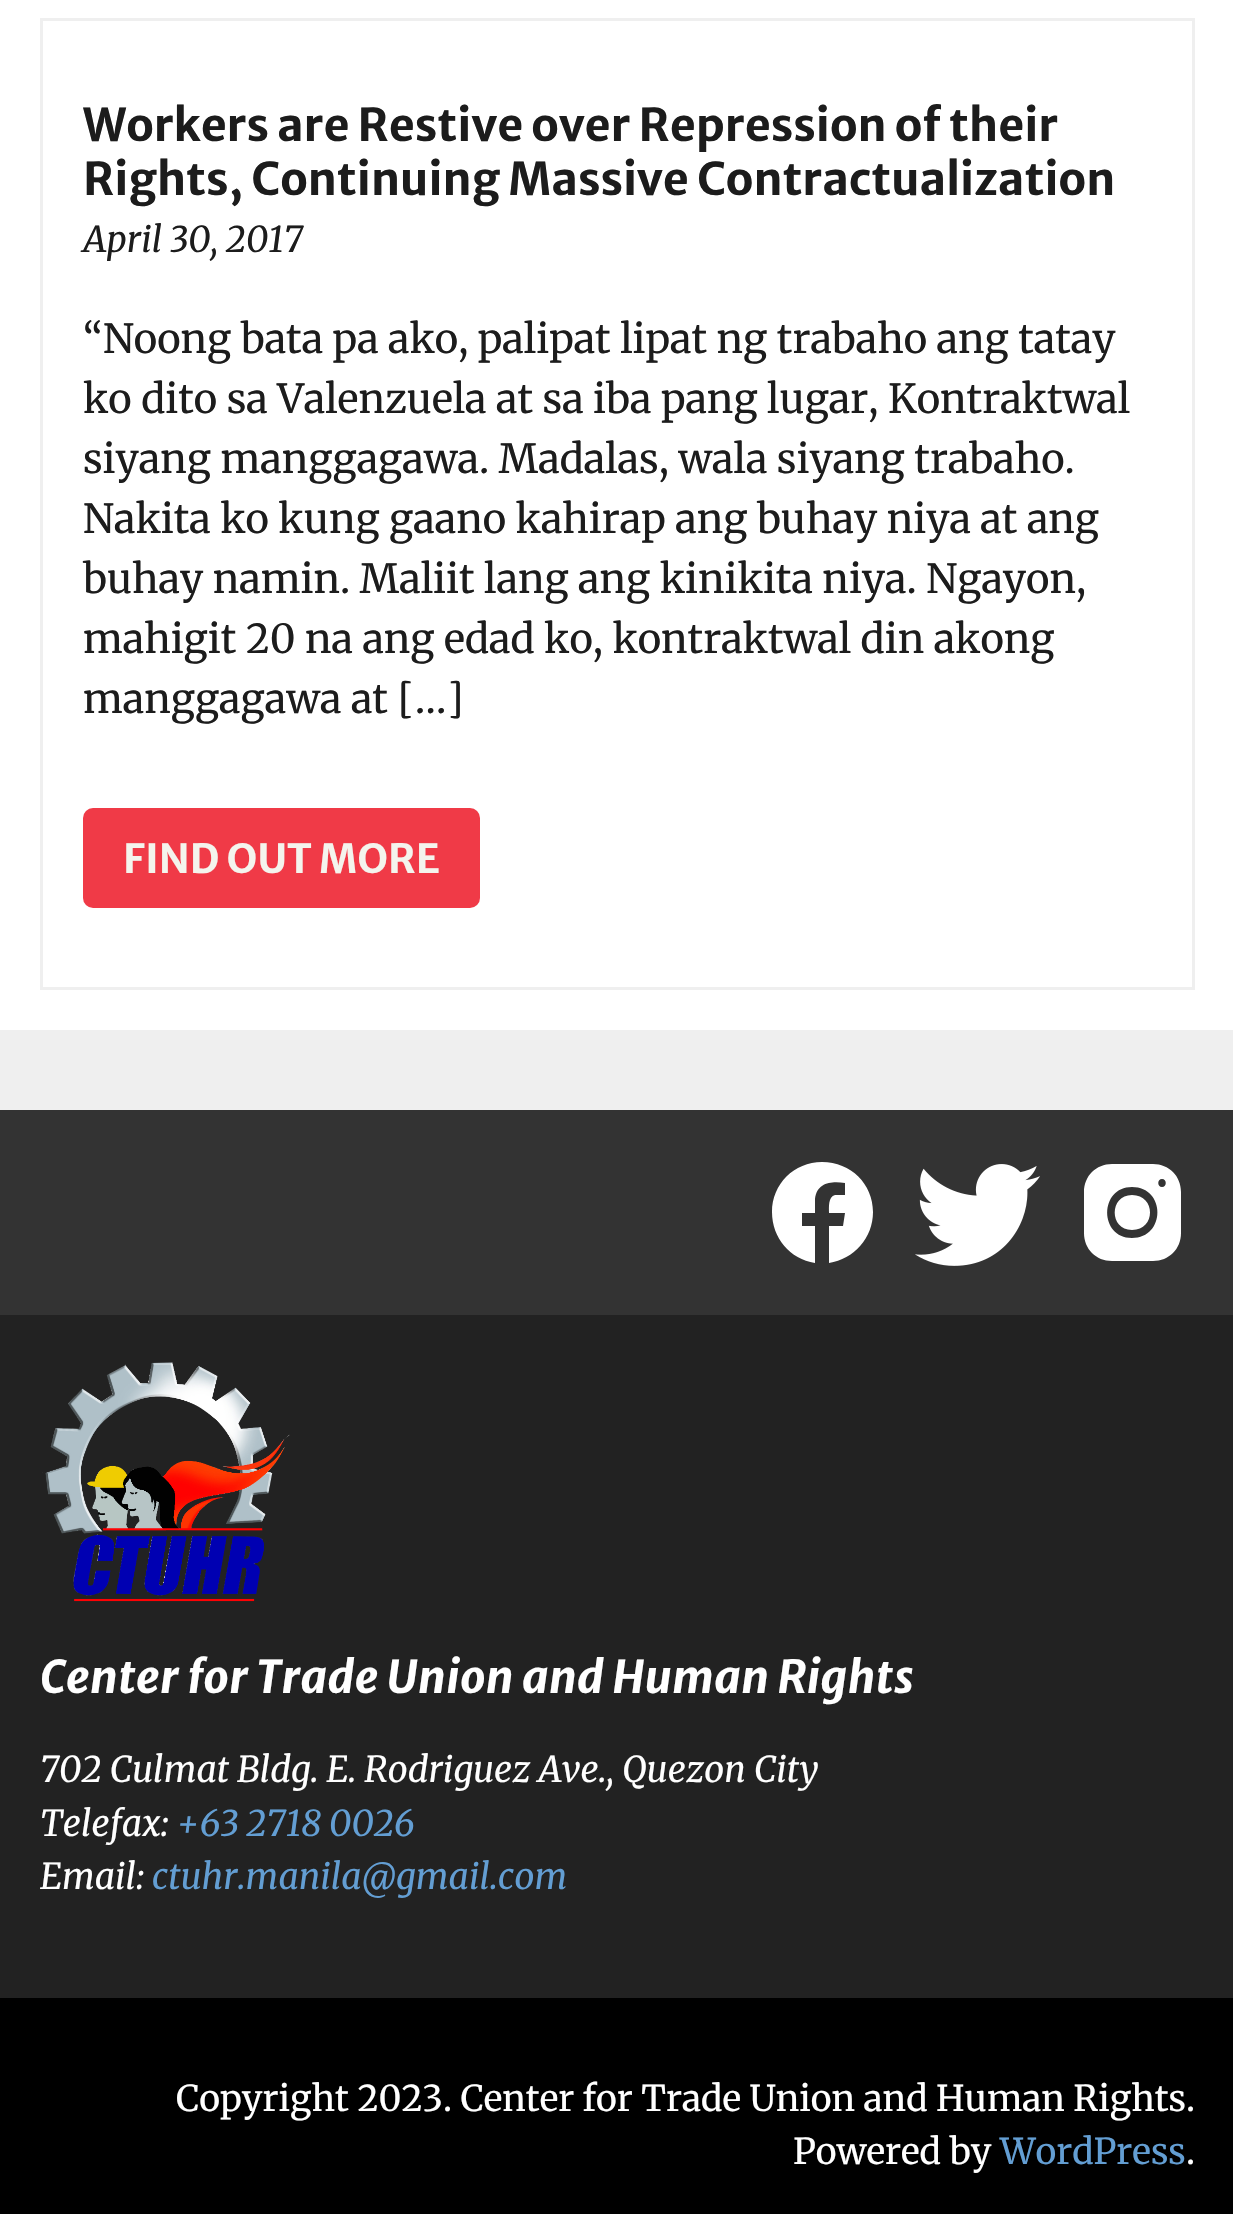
void draw(SkCanvas* canvas) {
	SkPaint fill;
	fill.setAntiAlias(true);
	auto makeFont = [&](const char* family, int weight, float size, bool italic = false) {
		SkFontStyle style(weight, SkFontStyle::kNormal_Width,
			italic ? SkFontStyle::kItalic_Slant : SkFontStyle::kUpright_Slant);
		SkFont result(fontMgr->matchFamilyStyle(family, style), size);
		result.setSubpixel(true);
		return result;
	};
	auto text = [&](const char* s, float x, float y, const SkFont& font) {
		canvas->drawString(s, x, y, font, fill);
	};
	auto box = [&](float l, float t, float r, float b) {
		canvas->drawRect(SkRect::MakeLTRB(l, t, r, b), fill);
	};
	auto roundBox = [&](float l, float t, float r, float b, float radius) {
		canvas->drawRoundRect(SkRect::MakeLTRB(l, t, r, b), radius, radius, fill);
	};
	auto picture = [&](const char* path, float l, float t, float r, float b) {
		auto image = SkImages::DeferredFromEncodedData(SkData::MakeFromFileName(path));
		canvas->drawImageRect(image, SkRect::MakeLTRB(l, t, r, b), SkSamplingOptions());
	};
	canvas->clear(0xFFEFEFEF);
	fill.setColor(0xFFFFFFFF);
	box(0, 0, 1233, 1030);
	fill.setStyle(SkPaint::kStroke_Style);
	fill.setStrokeWidth(3);
	fill.setColor(0xFFEFEFEF);
	canvas->drawRect(SkRect::MakeLTRB(41.5f, 19.5f, 1193.5f, 988.5f), fill);
	fill.setStyle(SkPaint::kFill_Style);
	fill.setColor(0xFFF03A47);
	roundBox(83, 808, 480, 908, 10);
	fill.setColor(0xFF333333);
	box(0, 1110, 1233, 1315);
	fill.setColor(0xFFFFFFFF);
	canvas->drawPath(SkPathBuilder().moveTo(822, 1162).cubicTo(794, 1162, 772, 1184, 772, 1212).cubicTo(772, 1238, 790, 1259, 815, 1263).lineTo(815, 1226).lineTo(802, 1226).lineTo(802, 1213).lineTo(815, 1213).lineTo(815, 1199).cubicTo(817, 1182, 832, 1181, 845, 1183).lineTo(845, 1195).lineTo(835, 1195).cubicTo(828, 1197, 829, 1207, 829, 1213).lineTo(845, 1213).lineTo(843, 1226).lineTo(829, 1226).lineTo(829, 1263).cubicTo(854, 1259, 873, 1238, 873, 1212).cubicTo(873, 1184, 851, 1162, 822, 1162).close().detach(), fill);
	picture("image0.png", 915, 1164, 1040, 1266);
	canvas->drawPath(SkPathBuilder().moveTo(1112, 1164).cubicTo(1096, 1164, 1084, 1176, 1084, 1192).lineTo(1084, 1233).cubicTo(1084, 1249, 1096, 1261, 1112, 1261).lineTo(1153, 1261).cubicTo(1169, 1261, 1181, 1249, 1181, 1233).lineTo(1181, 1192).cubicTo(1181, 1176, 1169, 1164, 1153, 1164).close().moveTo(1162, 1179).cubicTo(1167, 1179, 1167, 1187, 1162, 1187).cubicTo(1157, 1187, 1157, 1179, 1162, 1179).close().moveTo(1132, 1187).cubicTo(1166, 1187, 1166, 1238, 1132, 1238).cubicTo(1099, 1238, 1099, 1187, 1132, 1187).close().moveTo(1132, 1195).cubicTo(1109, 1195, 1109, 1230, 1132, 1230).cubicTo(1156, 1230, 1156, 1195, 1132, 1195).close().detach(), fill);
	fill.setColor(0xFF222222);
	box(0, 1315, 1233, 1998);
	picture("image1.png", 42, 1362, 290, 1602);
	fill.setColor(0xFF000000);
	box(0, 1998, 1233, 2214);
	auto font1 = makeFont("Merriweather Sans", 700, 45);
	fill.setColor(0xFF1C1C1C);
	text("Workers are Restive over Repression of their", 83, 141, font1);
	text("Rights, Continuing Massive Contractualization", 83, 195, font1);
	auto font2 = makeFont("Merriweather", 400, 35.55f, true);
	text("April 30, 2017", 83, 252, font2);
	auto font3 = makeFont("Merriweather", 400, 40);
	text("“Noong bata pa ako, palipat lipat ng trabaho ang tatay", 83, 353, font3);
	text("ko dito sa Valenzuela at sa iba pang lugar, Kontraktwal", 83, 413, font3);
	text("siyang manggagawa. Madalas, wala siyang trabaho.", 83, 473, font3);
	text("Nakita ko kung gaano kahirap ang buhay niya at ang", 83, 533, font3);
	text("buhay namin. Maliit lang ang kinikita niya. Ngayon,", 83, 593, font3);
	text("mahigit 20 na ang edad ko, kontraktwal din akong", 83, 653, font3);
	text("manggagawa at […]", 83, 713, font3);
	auto font4 = makeFont("Merriweather Sans", 700, 40);
	fill.setColor(0xFFF4F4ED);
	text("FIND OUT MORE", 123, 873, font4);
	auto font5 = makeFont("Merriweather Sans", 700, 45, true);
	fill.setColor(0xFFFFFFFF);
	text("Center for Trade Union and Human Rights", 40, 1693, font5);
	text("702 Culmat Bldg. E. Rodriguez Ave., Quezon City", 40, 1782, font2);
	text("Telefax:", 40, 1836, font2);
	fill.setColor(0xFF639ED3);
	text("+63 2718 0026", 176, 1836, font2);
	fill.setColor(0xFFFFFFFF);
	text("Email:", 40, 1889, font2);
	fill.setColor(0xFF639ED3);
	text("ctuhr.manila@gmail.com", 152, 1889, font2);
	auto font6 = makeFont("Merriweather", 400, 35.55f);
	fill.setColor(0xFFFFFFFF);
	text("Copyright 2023. Center for Trade Union and Human Rights.", 176, 2111, font6);
	text("Powered by", 793, 2164, font6);
	fill.setColor(0xFF639ED3);
	text("WordPress", 1000, 2164, font6);
	fill.setColor(0xFFFFFFFF);
	text(".", 1186, 2164, font6);
}
